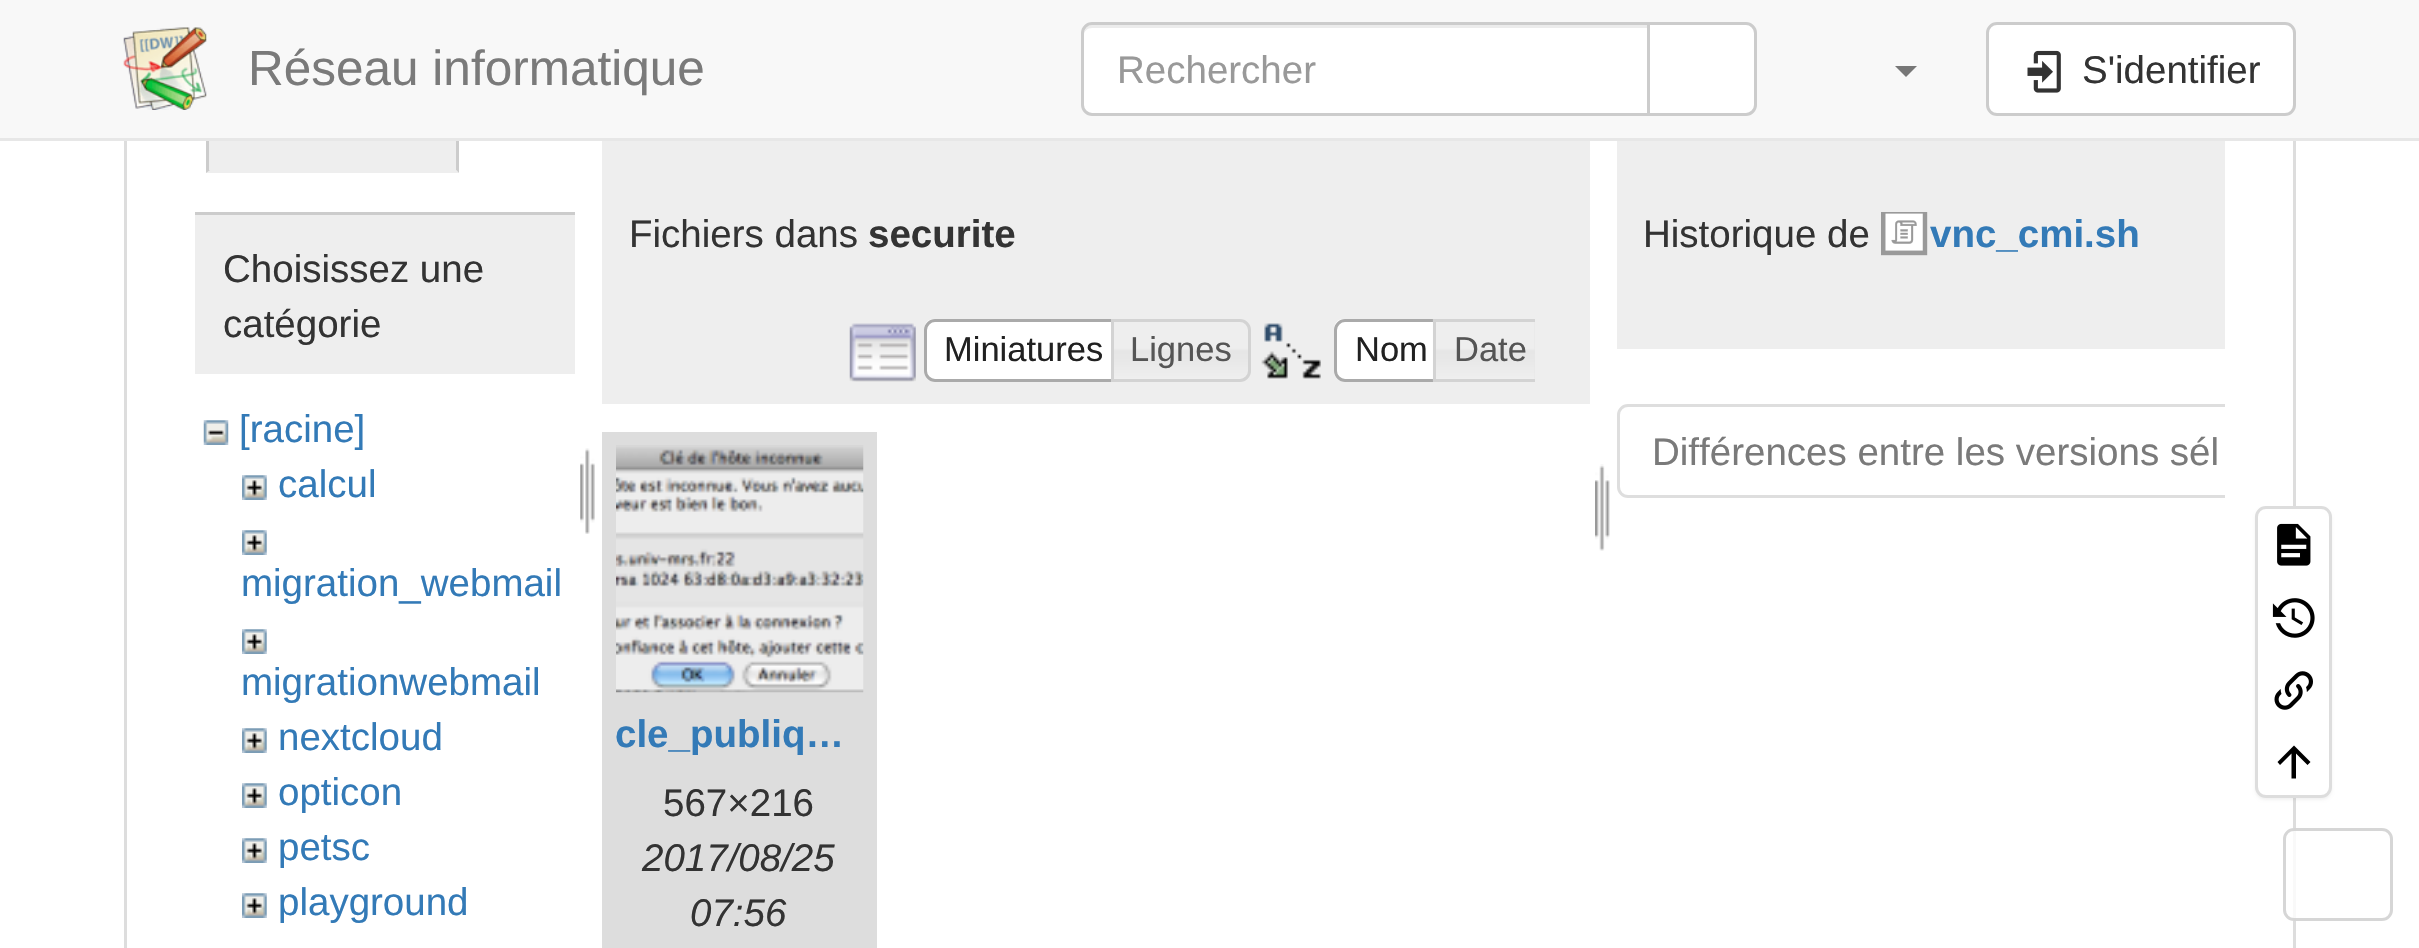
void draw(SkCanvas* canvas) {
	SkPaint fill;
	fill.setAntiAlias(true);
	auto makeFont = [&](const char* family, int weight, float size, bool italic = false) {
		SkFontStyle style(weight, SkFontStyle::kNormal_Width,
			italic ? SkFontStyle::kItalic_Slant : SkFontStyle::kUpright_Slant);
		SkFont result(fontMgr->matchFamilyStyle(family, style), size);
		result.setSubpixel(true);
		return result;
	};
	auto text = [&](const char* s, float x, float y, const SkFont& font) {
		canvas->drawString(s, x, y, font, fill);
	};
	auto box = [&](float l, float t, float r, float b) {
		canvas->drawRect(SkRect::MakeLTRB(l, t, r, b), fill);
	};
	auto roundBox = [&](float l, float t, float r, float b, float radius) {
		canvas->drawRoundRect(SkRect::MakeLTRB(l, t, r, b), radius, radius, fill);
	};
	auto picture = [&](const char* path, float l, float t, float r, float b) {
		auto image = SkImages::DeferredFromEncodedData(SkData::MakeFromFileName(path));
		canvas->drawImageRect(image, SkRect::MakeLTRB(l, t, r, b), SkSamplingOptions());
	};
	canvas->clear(0xFFFFFFFF);
	fill.setStyle(SkPaint::kStroke_Style);
	fill.setStrokeWidth(3);
	fill.setColor(0xFFDDDDDD);
	canvas->drawRect(SkRect::MakeLTRB(125.5f, -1.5f, 2294.5f, 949.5f), fill);
	fill.setStyle(SkPaint::kFill_Style);
	fill.setColor(0xFFEEEEEE);
	box(206, 141, 459, 173);
	fill.setColor(0xFFCCCCCC);
	canvas->drawPath(SkPathBuilder().moveTo(454, 80).cubicTo(457, 84, 459, 88, 459, 94).lineTo(459, 173).lineTo(456, 170).lineTo(456, 94).cubicTo(456, 89, 454, 85, 452, 82).close().detach(), fill);
	fill.setColor(0xFFEEEEEE);
	canvas->drawPath(SkPathBuilder().moveTo(459, 173).lineTo(456, 170).lineTo(210, 170).lineTo(206, 173).close().detach(), fill);
	fill.setColor(0xFFCCCCCC);
	canvas->drawPath(SkPathBuilder().moveTo(206, 91).cubicTo(207, 87, 209, 83, 212, 80).lineTo(214, 82).cubicTo(211, 85, 209, 89, 209, 94).lineTo(209, 170).lineTo(210, 170).lineTo(206, 173).close().detach(), fill);
	fill.setColor(0xFFF8F8F8);
	box(0, 0, 2419, 138);
	fill.setColor(0xFFE7E7E7);
	box(0, 138, 2419, 141);
	picture("image0.png", 123, 27, 207, 110);
	fill.setColor(0xFFFFFFFF);
	canvas->drawPath(SkPathBuilder().moveTo(1092, 22).lineTo(1650, 22).lineTo(1650, 116).lineTo(1092, 116).cubicTo(1086, 116, 1081, 111, 1081, 105).lineTo(1081, 33).cubicTo(1081, 27, 1086, 22, 1092, 22).close().detach(), fill);
	fill.setColor(0xFFECECEC);
	canvas->drawPath(SkPathBuilder().moveTo(1092, 28).lineTo(1647, 28).lineTo(1647, 25).lineTo(1092, 25).cubicTo(1086, 25, 1084, 31, 1084, 36).cubicTo(1084, 31, 1087, 28, 1092, 28).close().detach(), fill);
	fill.setStyle(SkPaint::kStroke_Style);
	fill.setColor(0xFFCCCCCC);
	canvas->drawPath(SkPathBuilder().moveTo(1092, 23.5f).lineTo(1648.5f, 23.5f).lineTo(1648.5f, 114.5f).lineTo(1092, 114.5f).cubicTo(1087, 114.5f, 1082.5f, 110, 1082.5f, 105).lineTo(1082.5f, 33).cubicTo(1082.5f, 28, 1087, 23.5f, 1092, 23.5f).close().detach(), fill);
	fill.setStyle(SkPaint::kFill_Style);
	fill.setColor(0xFFFFFFFF);
	canvas->drawPath(SkPathBuilder().moveTo(1648.5f, 23.5f).lineTo(1746, 23.5f).cubicTo(1751, 23.5f, 1755.5f, 28, 1755.5f, 33).lineTo(1755.5f, 105).cubicTo(1755.5f, 110, 1751, 114.5f, 1746, 114.5f).lineTo(1648.5f, 114.5f).close().detach(), fill);
	fill.setStyle(SkPaint::kStroke_Style);
	fill.setColor(0xFFCCCCCC);
	canvas->drawPath(SkPathBuilder().moveTo(1648.5f, 23.5f).lineTo(1746, 23.5f).cubicTo(1751, 23.5f, 1755.5f, 28, 1755.5f, 33).lineTo(1755.5f, 105).cubicTo(1755.5f, 110, 1751, 114.5f, 1746, 114.5f).lineTo(1648.5f, 114.5f).close().detach(), fill);
	fill.setStyle(SkPaint::kFill_Style);
	fill.setColor(0xFF777777);
	canvas->drawPath(SkPathBuilder().moveTo(1895, 66).lineTo(1917, 66).lineTo(1906, 77).close().detach(), fill);
	fill.setColor(0xFFFFFFFF);
	canvas->drawRoundRect(SkRect::MakeLTRB(1987.5f, 23.5f, 2294.5f, 114.5f), 9.5f, 9.5f, fill);
	fill.setStyle(SkPaint::kStroke_Style);
	fill.setColor(0xFFCCCCCC);
	canvas->drawRoundRect(SkRect::MakeLTRB(1987.5f, 23.5f, 2294.5f, 114.5f), 9.5f, 9.5f, fill);
	picture("image1.png", 2027, 50, 2061, 93);
	fill.setStyle(SkPaint::kFill_Style);
	fill.setColor(0xFFEEEEEE);
	box(195, 215, 575, 374);
	fill.setColor(0xFFCCCCCC);
	box(195, 212, 575, 215);
	picture("image2.png", 203, 420, 229, 445);
	picture("image3.png", 242, 475, 267, 500);
	picture("image3.png", 242, 530, 267, 555);
	picture("image3.png", 242, 629, 267, 654);
	picture("image3.png", 242, 728, 267, 753);
	picture("image3.png", 242, 783, 267, 808);
	picture("image3.png", 242, 838, 267, 863);
	picture("image3.png", 242, 893, 267, 918);
	picture("image4.png", 580, 448, 595, 534);
	fill.setColor(0xFFEEEEEE);
	box(602, 141, 1590, 404);
	picture("image5.png", 849, 323, 916, 382);
	fill.setColor(0xFFFFFFFF);
	canvas->drawPath(SkPathBuilder().moveTo(935, 319).lineTo(1125, 319).lineTo(1125, 382).lineTo(935, 382).cubicTo(929, 382, 924, 377, 924, 371).lineTo(924, 330).cubicTo(924, 324, 929, 319, 935, 319).close().detach(), fill);
	picture("image6.png", 924, 319, 933, 327);
	fill.setStyle(SkPaint::kStroke_Style);
	fill.setColor(0xFFAAAAAA);
	canvas->drawPath(SkPathBuilder().moveTo(935, 320.5f).lineTo(1123.5f, 320.5f).lineTo(1123.5f, 380.5f).lineTo(935, 380.5f).cubicTo(930, 380.5f, 925.5f, 376, 925.5f, 371).lineTo(925.5f, 330).cubicTo(925.5f, 325, 930, 320.5f, 935, 320.5f).close().detach(), fill);
	picture("image7.png", 1114, 319, 1251, 382);
	fill.setColor(0xFFD3D3D3);
	canvas->drawPath(SkPathBuilder().moveTo(1112.5f, 320.5f).lineTo(1240, 320.5f).cubicTo(1245, 320.5f, 1249.5f, 325, 1249.5f, 330).lineTo(1249.5f, 371).cubicTo(1249.5f, 376, 1245, 380.5f, 1240, 380.5f).lineTo(1112.5f, 380.5f).close().detach(), fill);
	picture("image8.png", 1261, 323, 1321, 379);
	fill.setStyle(SkPaint::kFill_Style);
	fill.setColor(0xFFFFFFFF);
	canvas->drawPath(SkPathBuilder().moveTo(1345, 319).lineTo(1447, 319).lineTo(1447, 382).lineTo(1345, 382).cubicTo(1339, 382, 1334, 377, 1334, 371).lineTo(1334, 330).cubicTo(1334, 324, 1339, 319, 1345, 319).close().detach(), fill);
	picture("image9.png", 1334, 319, 1343, 381);
	fill.setStyle(SkPaint::kStroke_Style);
	fill.setColor(0xFFAAAAAA);
	canvas->drawPath(SkPathBuilder().moveTo(1345, 320.5f).lineTo(1445.5f, 320.5f).lineTo(1445.5f, 380.5f).lineTo(1345, 380.5f).cubicTo(1340, 380.5f, 1335.5f, 376, 1335.5f, 371).lineTo(1335.5f, 330).cubicTo(1335.5f, 325, 1340, 320.5f, 1345, 320.5f).close().detach(), fill);
	fill.setStyle(SkPaint::kFill_Style);
	fill.setColor(0xFFE6E6E6);
	box(1534, 322, 1535, 379);
	picture("image10.png", 1432, 319, 1535, 382);
	canvas->save();
	canvas->clipRect(SkRect::MakeLTRB(828, 319, 1535, 382));
	fill.setStyle(SkPaint::kStroke_Style);
	fill.setColor(0xFFD3D3D3);
	canvas->drawPath(SkPathBuilder().moveTo(1434.5f, 320.5f).lineTo(1537, 320.5f).cubicTo(1542, 320.5f, 1546.5f, 325, 1546.5f, 330).lineTo(1546.5f, 371).cubicTo(1546.5f, 376, 1542, 380.5f, 1537, 380.5f).lineTo(1434.5f, 380.5f).close().detach(), fill);
	canvas->restore();
	picture("image11.png", 1595, 464, 1610, 551);
	fill.setStyle(SkPaint::kFill_Style);
	fill.setColor(0xFFDDDDDD);
	box(602, 432, 877, 948);
	picture("image12.png", 616, 445, 864, 693);
	fill.setColor(0xFFEEEEEE);
	box(1617, 141, 2225, 349);
	picture("image13.png", 1881, 212, 1928, 256);
	canvas->save();
	canvas->clipRect(SkRect::MakeLTRB(1617, 377, 2225, 946));
	fill.setStyle(SkPaint::kStroke_Style);
	fill.setColor(0xFFDEDEDE);
	canvas->drawRoundRect(SkRect::MakeLTRB(1618.5f, 405.5f, 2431.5f, 496.5f), 9.5f, 9.5f, fill);
	canvas->restore();
	fill.setStyle(SkPaint::kFill_Style);
	fill.setColor(0x0D000000);
	fill.setMaskFilter(SkMaskFilter::MakeBlur(kNormal_SkBlurStyle, 1.5f));
	canvas->drawRoundRect(SkRect::MakeLTRB(2255, 509, 2332, 800), 11, 11, fill);
	fill.setMaskFilter(nullptr);
	fill.setColor(0xFFFFFFFF);
	canvas->drawRoundRect(SkRect::MakeLTRB(2256.5f, 507.5f, 2330.5f, 796.5f), 9.5f, 9.5f, fill);
	fill.setStyle(SkPaint::kStroke_Style);
	fill.setColor(0xFFDDDDDD);
	canvas->drawRoundRect(SkRect::MakeLTRB(2256.5f, 507.5f, 2330.5f, 796.5f), 9.5f, 9.5f, fill);
	picture("image14.png", 2277, 523, 2311, 566);
	picture("image15.png", 2272, 598, 2315, 638);
	picture("image16.png", 2274, 671, 2313, 710);
	fill.setStyle(SkPaint::kFill_Style);
	fill.setColor(0xFF000000);
	canvas->drawPath(SkPathBuilder().moveTo(2296, 778.5f).lineTo(2291.5f, 778.5f).lineTo(2291.5f, 753.5f).lineTo(2280, 765).lineTo(2277.5f, 762).lineTo(2294, 745.5f).lineTo(2310.5f, 762).lineTo(2307.5f, 765).lineTo(2296, 753.5f).close().detach(), fill);
	fill.setColor(0xCCFFFFFF);
	roundBox(2283, 828, 2393, 921, 11);
	fill.setStyle(SkPaint::kStroke_Style);
	fill.setColor(0xCCCCCCCC);
	canvas->drawRoundRect(SkRect::MakeLTRB(2284.5f, 829.5f, 2391.5f, 919.5f), 9.5f, 9.5f, fill);
	auto font1 = makeFont("Liberation Sans", 400, 49.5f);
	fill.setStyle(SkPaint::kFill_Style);
	fill.setColor(0xFF7A7A7A);
	text("Réseau informatique", 248, 85, font1);
	auto font2 = makeFont("Liberation Sans", 400, 38.5f);
	fill.setColor(0xFF999999);
	text("Rechercher", 1117, 83, font2);
	fill.setColor(0xFF333333);
	text("S'identifier", 2082, 83, font2);
	text("Choisissez une", 223, 282, font2);
	text("catégorie", 223, 337, font2);
	fill.setColor(0xFF337AB7);
	text("[racine]", 239, 442, font2);
	text("calcul", 278, 497, font2);
	text("migration_webmail", 241, 596, font2);
	text("migrationwebmail", 241, 695, font2);
	text("nextcloud", 278, 750, font2);
	text("opticon", 278, 805, font2);
	text("petsc", 278, 860, font2);
	text("playground", 278, 915, font2);
	fill.setColor(0xFF333333);
	text("Fichiers dans", 629, 247, font2);
	auto font3 = makeFont("Liberation Sans", 700, 38.5f);
	text("securite", 868, 247, font3);
	auto font4 = makeFont("Liberation Sans", 400, 34.5f);
	fill.setColor(0xFF212121);
	text("Miniatures", 944, 361, font4);
	fill.setColor(0xFF555555);
	text("Lignes", 1130, 361, font4);
	fill.setColor(0xFF212121);
	text("Nom", 1355, 361, font4);
	fill.setColor(0xFF555555);
	text("Date", 1454, 361, font4);
	fill.setColor(0xFF337AB7);
	text("cle_publiq…", 615, 747, font3);
	fill.setColor(0xFF333333);
	text("567×216", 663, 816, font2);
	auto font5 = makeFont("Liberation Sans", 400, 38.5f, true);
	text("2017/08/25", 642, 871, font5);
	text("07:56", 690, 926, font5);
	text("Historique de", 1643, 247, font2);
	fill.setColor(0xFF337AB7);
	text("vnc_cmi.sh", 1930, 247, font3);
	fill.setColor(0xFF7A7A7A);
	text("Différences entre les versions sél", 1652, 465, font2);
}
